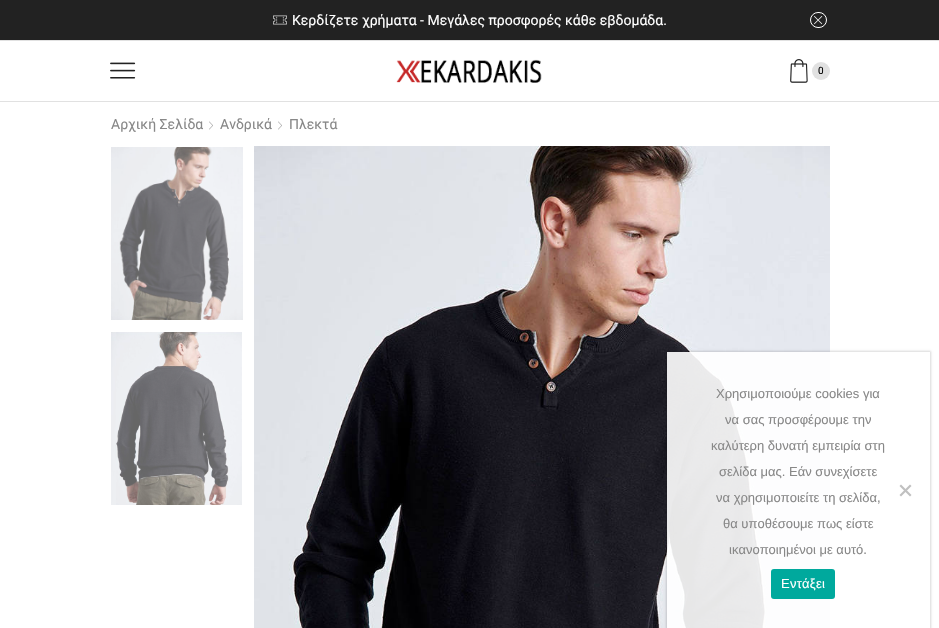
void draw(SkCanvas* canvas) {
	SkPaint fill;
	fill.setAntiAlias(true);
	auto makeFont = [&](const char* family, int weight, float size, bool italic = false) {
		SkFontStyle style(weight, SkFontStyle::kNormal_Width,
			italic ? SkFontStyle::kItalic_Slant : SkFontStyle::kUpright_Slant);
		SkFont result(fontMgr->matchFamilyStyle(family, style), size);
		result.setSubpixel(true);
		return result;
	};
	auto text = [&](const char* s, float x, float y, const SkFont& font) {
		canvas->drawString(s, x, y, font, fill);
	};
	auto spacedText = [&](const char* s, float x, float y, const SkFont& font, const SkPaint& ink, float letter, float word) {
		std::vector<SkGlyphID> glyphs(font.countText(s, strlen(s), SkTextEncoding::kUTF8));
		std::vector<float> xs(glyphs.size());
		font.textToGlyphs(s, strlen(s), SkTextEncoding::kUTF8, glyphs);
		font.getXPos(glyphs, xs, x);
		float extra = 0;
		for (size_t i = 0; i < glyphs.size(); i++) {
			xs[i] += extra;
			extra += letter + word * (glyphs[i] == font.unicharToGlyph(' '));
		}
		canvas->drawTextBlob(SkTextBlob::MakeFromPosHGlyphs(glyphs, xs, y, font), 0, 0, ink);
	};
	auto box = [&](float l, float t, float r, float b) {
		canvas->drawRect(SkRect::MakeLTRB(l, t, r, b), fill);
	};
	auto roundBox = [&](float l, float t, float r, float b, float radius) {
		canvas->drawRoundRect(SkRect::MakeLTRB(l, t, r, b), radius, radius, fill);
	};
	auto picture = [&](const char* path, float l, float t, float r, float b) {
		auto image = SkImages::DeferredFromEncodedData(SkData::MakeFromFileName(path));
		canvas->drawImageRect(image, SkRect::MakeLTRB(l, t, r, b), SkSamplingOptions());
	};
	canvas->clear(0xFFFFFFFF);
	fill.setColor(0xFF222222);
	box(0, 0, 939, 40);
	fill.setColor(0xFFE1E1E1);
	box(0, 40, 939, 41);
	picture("image0.png", 273, 15, 287, 25);
	fill.setStyle(SkPaint::kStroke_Style);
	fill.setStrokeWidth(1);
	fill.setColor(0xFFFFFFFF);
	canvas->drawRoundRect(SkRect::MakeLTRB(810.5f, 12.5f, 826.5f, 27.5f), 7.5f, 7.5f, fill);
	picture("image1.png", 814, 16, 823, 25);
	fill.setStyle(SkPaint::kFill_Style);
	fill.setColor(0xFFE1E1E1);
	box(0, 101, 939, 102);
	picture("image2.png", 110, 62, 136, 79);
	picture("image3.png", 396, 59, 542, 83);
	picture("image4.png", 790, 59, 808, 83);
	canvas->drawCircle(821, 71, 9, fill);
	picture("image5.png", 209, 121, 213, 130);
	picture("image5.png", 278, 121, 282, 130);
	picture("image6.png", 111, 147, 243, 320);
	picture("image7.png", 111, 332, 242, 505);
	picture("image8.png", 254, 146, 830, 628);
	canvas->save();
	canvas->clipPath(SkPathBuilder(SkPathFillType::kEvenOdd).moveTo(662, 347).lineTo(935, 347).lineTo(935, 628).lineTo(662, 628).close().moveTo(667, 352).lineTo(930, 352).lineTo(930, 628).lineTo(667, 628).close().detach(), true);
	fill.setColor(0x26000000);
	fill.setMaskFilter(SkMaskFilter::MakeBlur(kNormal_SkBlurStyle, 1));
	canvas->drawRect(SkRect::MakeLTRB(666, 351, 931, 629), fill);
	fill.setMaskFilter(nullptr);
	canvas->restore();
	fill.setColor(0xE6FFFFFF);
	box(667, 352, 830, 628);
	fill.setColor(0xFFC0C0C0);
	canvas->drawPath(SkPathBuilder().moveTo(910, 484.5f).lineTo(911.5f, 486).lineTo(901, 496.5f).lineTo(899.5f, 495).close().detach(), fill);
	canvas->drawPath(SkPathBuilder().moveTo(899.5f, 486).lineTo(901, 484.5f).lineTo(911.5f, 495).lineTo(910, 496.5f).close().detach(), fill);
	fill.setColor(0xFF00A99D);
	roundBox(771, 569, 835, 599, 3);
	auto font1 = makeFont("Roboto", 400, 14);
	fill.setColor(0xFFFFFFFF);
	text("Κερδίζετε χρήματα - Μεγάλες προσφορές κάθε εβδομάδα.", 292, 25, font1);
	auto font2 = makeFont("Roboto", 400, 10);
	fill.setColor(0xFF000000);
	text("0", 818, 74, font2);
	fill.setColor(0xFF888888);
	text("Αρχική Σελίδα", 111, 129, font1);
	text("Ανδρικά", 220, 129, font1);
	text("Πλεκτά", 289, 129, font1);
	auto font3 = makeFont("Liberation Sans", 400, 13);
	text("Χρησιμοποιούμε cookies για", 716, 398, font3);
	text("να σας προσφέρουμε την", 725, 424, font3);
	text("καλύτερη δυνατή εμπειρία στη", 711, 450, font3);
	text("σελίδα μας. Εάν συνεχίσετε", 719, 476, font3);
	text("να χρησιμοποιείτε τη σελίδα,", 716, 502, font3);
	text("θα υποθέσουμε πως είστε", 723, 528, font3);
	text("ικανοποιημένοι με αυτό.", 729, 554, font3);
	fill.setColor(0xFFFFFFFF);
	spacedText("Εντάξει", 781, 588, font3, fill, 0.25f, 0);
}
